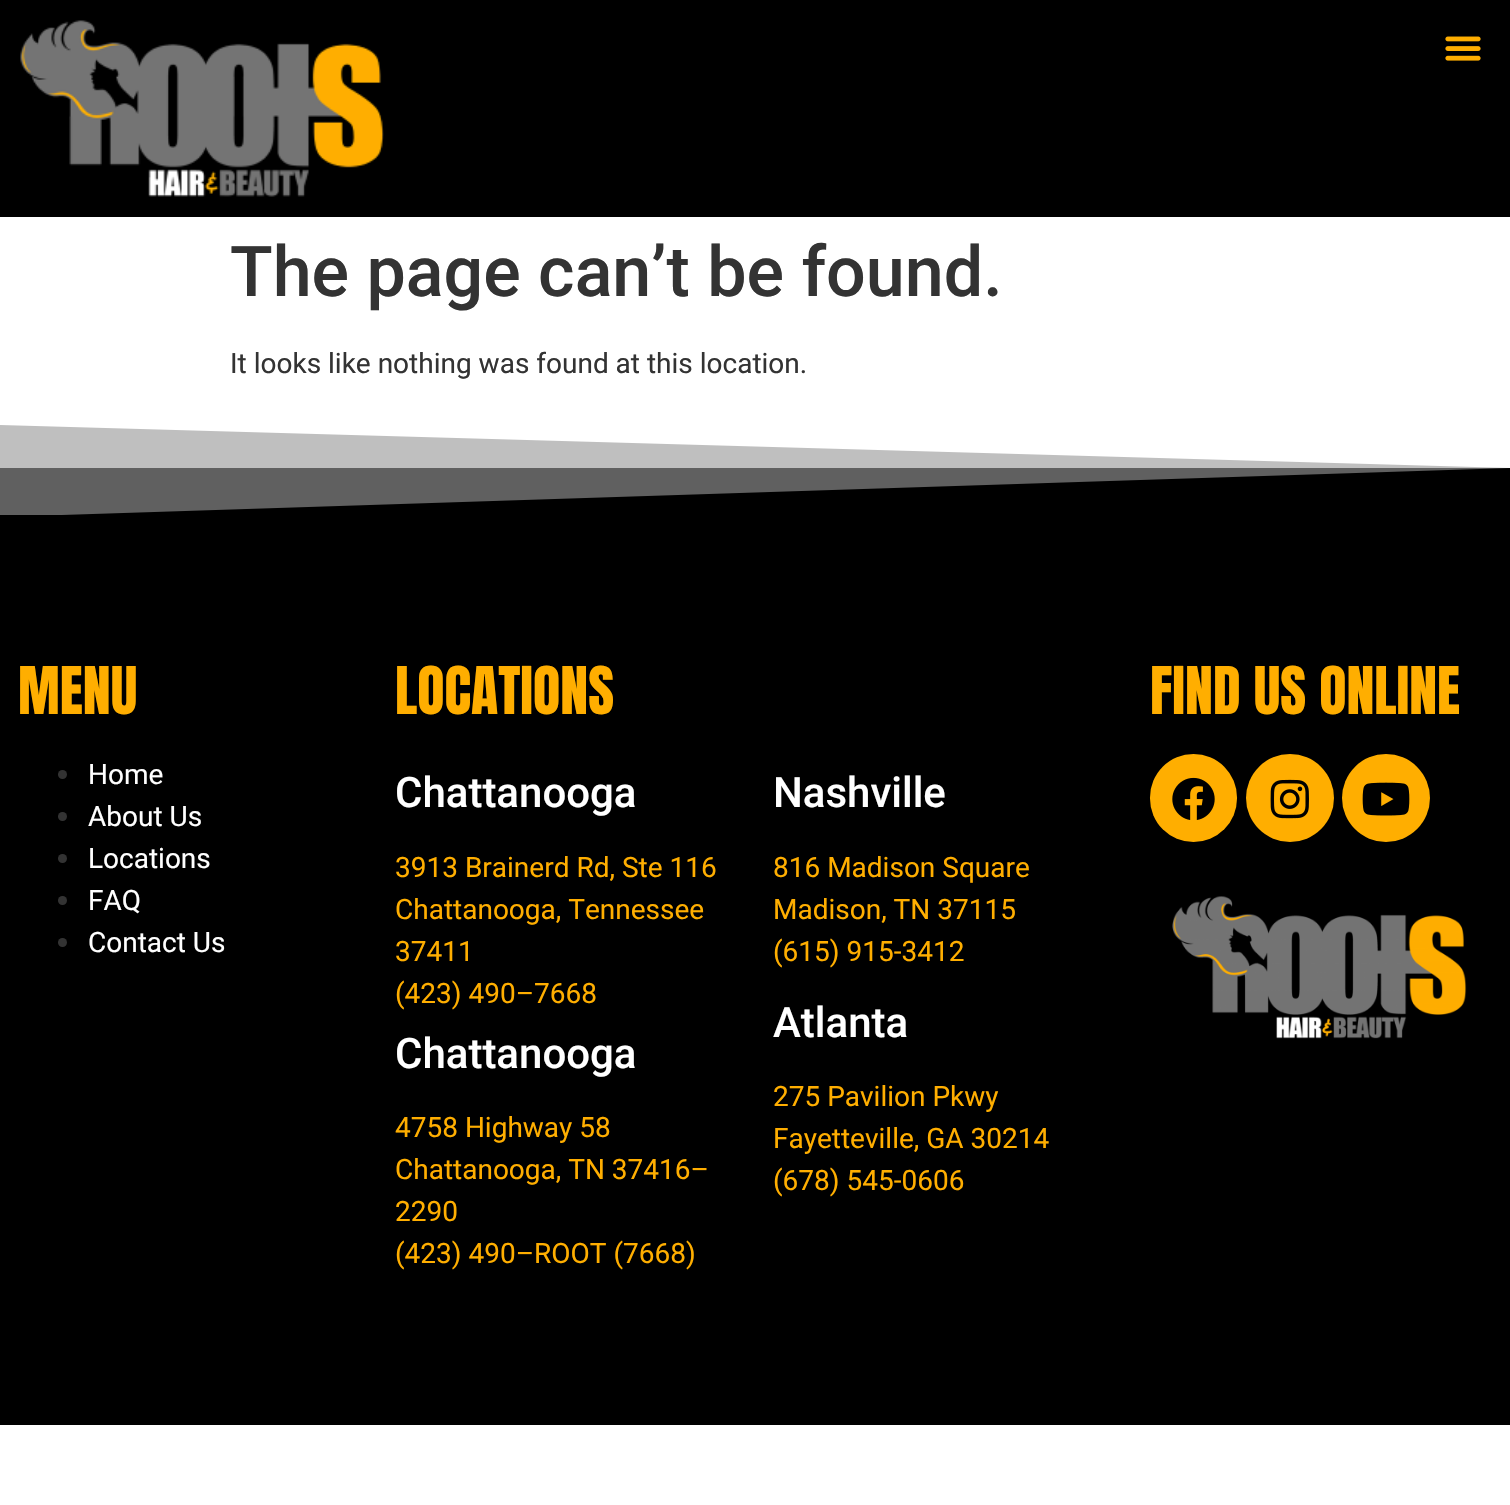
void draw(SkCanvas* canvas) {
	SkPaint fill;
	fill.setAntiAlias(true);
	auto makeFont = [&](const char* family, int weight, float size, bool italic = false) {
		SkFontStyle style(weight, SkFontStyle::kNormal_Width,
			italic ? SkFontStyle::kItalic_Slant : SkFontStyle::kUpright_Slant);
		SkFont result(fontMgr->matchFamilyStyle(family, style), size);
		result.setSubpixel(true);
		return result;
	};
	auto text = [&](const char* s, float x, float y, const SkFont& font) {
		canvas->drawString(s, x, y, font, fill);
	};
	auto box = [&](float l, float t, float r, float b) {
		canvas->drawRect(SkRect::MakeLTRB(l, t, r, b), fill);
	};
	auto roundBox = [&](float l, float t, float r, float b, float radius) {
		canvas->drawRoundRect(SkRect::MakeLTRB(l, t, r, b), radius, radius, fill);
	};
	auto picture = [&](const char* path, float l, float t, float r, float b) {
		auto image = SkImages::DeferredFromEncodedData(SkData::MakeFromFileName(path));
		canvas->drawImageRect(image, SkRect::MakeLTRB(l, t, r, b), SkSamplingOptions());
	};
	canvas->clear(0xFFFFFFFF);
	fill.setColor(0xFF808080);
	box(0, 468, 1510, 515);
	fill.setColor(0xFF000000);
	box(0, 0, 1510, 217);
	picture("image0.png", 20, 20, 384, 197);
	picture("image1.png", 1445, 36, 1481, 61);
	canvas->drawPath(SkPathBuilder().moveTo(0, 517).lineTo(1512, 517).lineTo(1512, 468).close().detach(), fill);
	fill.setColor(0x40000000);
	canvas->drawPath(SkPathBuilder().moveTo(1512, 517).lineTo(0, 517).lineTo(0, 425).lineTo(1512, 468).close().detach(), fill);
	fill.setColor(0xFF000000);
	box(0, 515, 1510, 1425);
	fill.setColor(0xFF333333);
	canvas->drawCircle(62.5f, 774.5f, 4.5f, fill);
	canvas->drawCircle(62.5f, 816.5f, 4.5f, fill);
	canvas->drawCircle(62.5f, 858.5f, 4.5f, fill);
	canvas->drawCircle(62.5f, 900.5f, 4.5f, fill);
	canvas->drawCircle(62.5f, 942.5f, 4.5f, fill);
	fill.setColor(0xFFFFAE00);
	roundBox(1150, 754, 1237, 842, 43.5f);
	picture("image2.png", 1172, 777, 1215, 820);
	canvas->drawCircle(1290, 798, 44, fill);
	picture("image3.png", 1270, 779, 1309, 819);
	canvas->drawCircle(1386, 798, 44, fill);
	picture("image4.png", 1362, 782, 1410, 816);
	picture("image5.png", 1172, 896, 1467, 1039);
	auto font1 = makeFont("Roboto", 500, 70);
	fill.setColor(0xFF333333);
	text("The page can’t be found.", 230, 296, font1);
	auto font2 = makeFont("Roboto", 400, 28);
	text("It looks like nothing was found at this location.", 230, 373, font2);
	auto font3 = makeFont("Anton", 400, 56);
	fill.setColor(0xFFFFAE00);
	text("MENU", 18, 714, font3);
	fill.setColor(0xFFFFFFFF);
	text("Home", 88, 784, font2);
	text("About Us", 88, 826, font2);
	text("Locations", 88, 868, font2);
	text("FAQ", 88, 910, font2);
	text("Contact Us", 88, 952, font2);
	fill.setColor(0xFFFFAE00);
	text("LOCATIONS", 395, 714, font3);
	auto font4 = makeFont("Roboto", 500, 42);
	fill.setColor(0xFFFFFFFF);
	text("Chattanooga", 395, 807, font4);
	fill.setColor(0xFFFFAE00);
	text("3913 Brainerd Rd, Ste 116", 395, 877, font2);
	text("Chattanooga, Tennessee", 395, 919, font2);
	text("37411", 395, 961, font2);
	text("(423) 490–7668", 395, 1003, font2);
	fill.setColor(0xFFFFFFFF);
	text("Chattanooga", 395, 1068, font4);
	fill.setColor(0xFFFFAE00);
	text("4758 Highway 58", 395, 1137, font2);
	text("Chattanooga, TN 37416–", 395, 1179, font2);
	text("2290", 395, 1221, font2);
	text("(423) 490–ROOT (7668)", 395, 1263, font2);
	text("FIND US ONLINE", 1150, 714, font3);
	fill.setColor(0xFFFFFFFF);
	text("Nashville", 773, 807, font4);
	fill.setColor(0xFFFFAE00);
	text("816 Madison Square", 773, 877, font2);
	text("Madison, TN 37115", 773, 919, font2);
	text("(615) 915-3412", 773, 961, font2);
	fill.setColor(0xFFFFFFFF);
	text("Atlanta", 773, 1037, font4);
	fill.setColor(0xFFFFAE00);
	text("275 Pavilion Pkwy", 773, 1106, font2);
	text("Fayetteville, GA 30214", 773, 1148, font2);
	text("(678) 545-0606", 773, 1190, font2);
}
